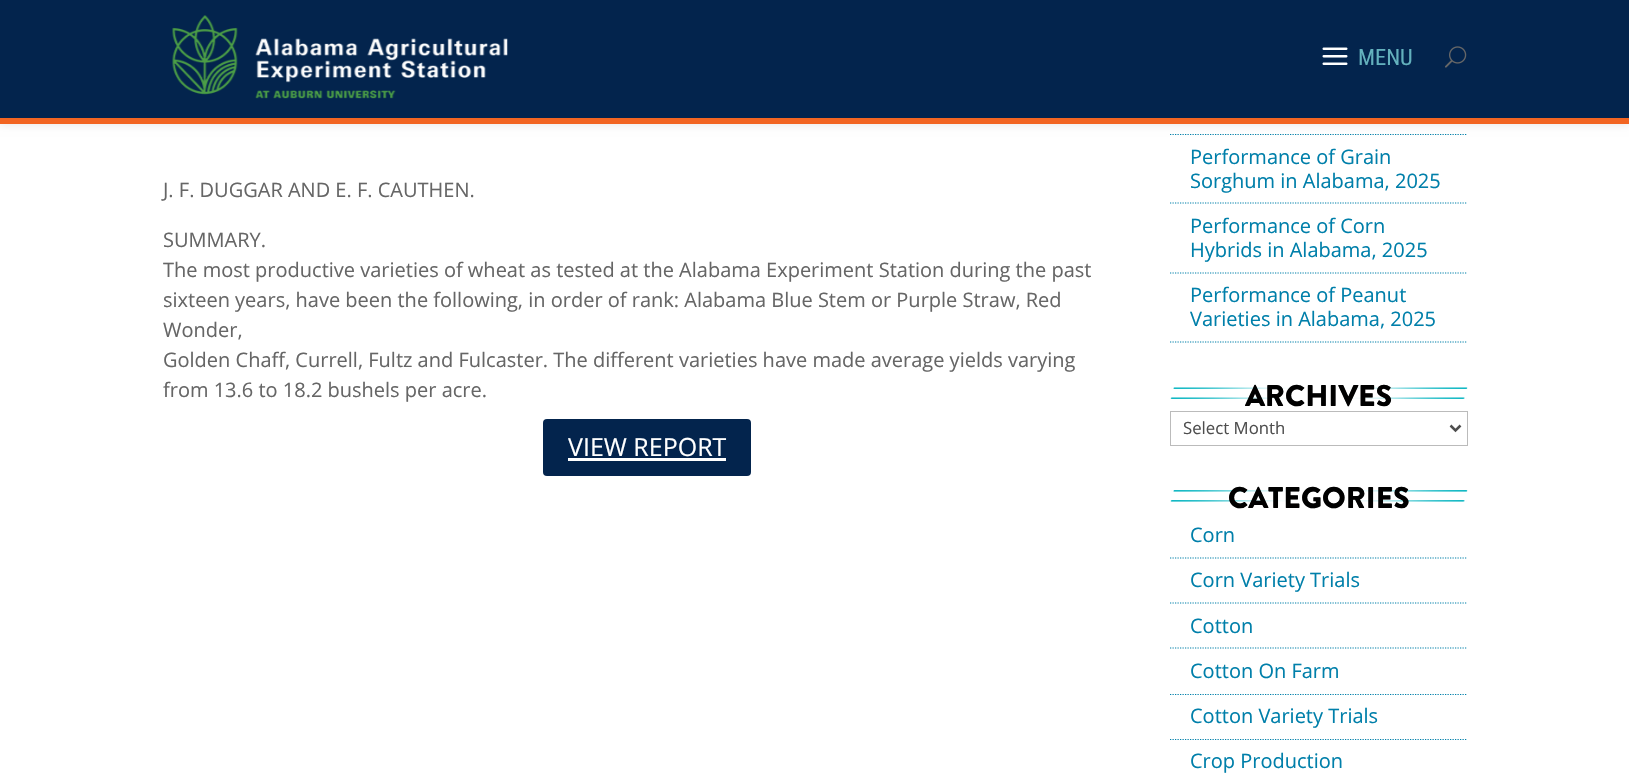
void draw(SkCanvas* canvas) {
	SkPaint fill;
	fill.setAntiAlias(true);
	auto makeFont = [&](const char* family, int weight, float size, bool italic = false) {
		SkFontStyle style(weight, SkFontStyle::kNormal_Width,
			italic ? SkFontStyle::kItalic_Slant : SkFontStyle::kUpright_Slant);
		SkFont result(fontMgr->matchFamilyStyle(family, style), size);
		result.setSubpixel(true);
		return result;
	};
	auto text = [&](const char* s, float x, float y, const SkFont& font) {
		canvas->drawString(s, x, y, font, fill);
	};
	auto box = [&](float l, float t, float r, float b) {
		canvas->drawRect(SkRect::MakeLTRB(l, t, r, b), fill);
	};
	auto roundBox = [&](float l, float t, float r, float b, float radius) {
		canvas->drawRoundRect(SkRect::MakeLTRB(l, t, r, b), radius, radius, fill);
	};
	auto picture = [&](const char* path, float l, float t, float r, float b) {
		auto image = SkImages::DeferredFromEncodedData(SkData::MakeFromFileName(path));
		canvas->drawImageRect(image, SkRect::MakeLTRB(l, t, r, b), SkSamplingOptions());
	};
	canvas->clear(0xFFFFFFFF);
	fill.setStyle(SkPaint::kStroke_Style);
	fill.setStrokeWidth(1.2f);
	fill.setColor(0xFF007FAA);
	fill.setPathEffect(SkDashPathEffect::Make({{1.25f, 1.25f}}, 0));
	canvas->drawPath(SkPathBuilder().moveTo(1170, 134.5f).lineTo(1467.5f, 134.5f).detach(), fill);
	fill.setPathEffect(nullptr);
	fill.setStyle(SkPaint::kFill_Style);
	{
		const SkColor colors[] = {0xFF03244D, 0xFF03244D, 0xFFF26422, 0xFFF26422, 0xFFFFFFFF, 0xFFFFFFFF};
		const float stops[] = {0, 0.44f, 0.44f, 0.57f, 0.57f, 1};
		const SkPoint ends[] = {{558, -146}, {1187, 483}};
		fill.setShader(SkGradientShader::MakeLinear(ends, colors, stops, 6, SkTileMode::kClamp));
		fill.setAlpha(255);
	}
	box(1170, 135, 1467, 136);
	fill.setShader(nullptr);
	fill.setColor(0x1A000000);
	fill.setMaskFilter(SkMaskFilter::MakeBlur(kNormal_SkBlurStyle, 4.5f));
	canvas->drawRect(SkRect::MakeLTRB(0, 0, 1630, 124), fill);
	fill.setMaskFilter(nullptr);
	fill.setColor(0xFF03244D);
	box(0, 0, 1629, 118);
	fill.setColor(0xFFF26522);
	box(0, 118, 1629, 124);
	picture("image0.png", 172, 15, 508, 99);
	picture("image1.png", 1322, 47, 1348, 65);
	picture("image2.png", 1445, 46, 1467, 68);
	fill.setColor(0xFF03244D);
	roundBox(543, 419, 751, 476, 4);
	fill.setColor(0xFFFFFFFF);
	box(568, 458, 726, 461);
	fill.setStyle(SkPaint::kStroke_Style);
	fill.setColor(0xFF007FAA);
	fill.setPathEffect(SkDashPathEffect::Make({{1.25f, 1.25f}}, 0));
	canvas->drawPath(SkPathBuilder().moveTo(1170, 203).lineTo(1467.5f, 203).detach(), fill);
	fill.setPathEffect(nullptr);
	fill.setPathEffect(SkDashPathEffect::Make({{1.25f, 1.25f}}, 0));
	canvas->drawPath(SkPathBuilder().moveTo(1170, 273).lineTo(1467.5f, 273).detach(), fill);
	fill.setPathEffect(nullptr);
	fill.setPathEffect(SkDashPathEffect::Make({{1.25f, 1.25f}}, 0));
	canvas->drawPath(SkPathBuilder().moveTo(1170, 342).lineTo(1467.5f, 342).detach(), fill);
	fill.setPathEffect(nullptr);
	picture("image3.png", 1170, 387, 1468, 399);
	fill.setStrokeWidth(1);
	fill.setColor(0xFFBBBBBB);
	canvas->drawRect(SkRect::MakeLTRB(1170.5f, 411.5f, 1467.5f, 445.5f), fill);
	fill.setStrokeWidth(2.5f);
	fill.setColor(0xFF4E4E4E);
	canvas->drawPath(SkPathBuilder().moveTo(1450.5f, 425.5f).lineTo(1455.5f, 430.5f).lineTo(1460.5f, 425.5f).detach(), fill);
	picture("image4.png", 1170, 490, 1468, 502);
	fill.setStrokeWidth(1.2f);
	fill.setColor(0xFF007FAA);
	fill.setPathEffect(SkDashPathEffect::Make({{1.25f, 1.25f}}, 0));
	canvas->drawPath(SkPathBuilder().moveTo(1170, 558).lineTo(1467.5f, 558).detach(), fill);
	fill.setPathEffect(nullptr);
	fill.setPathEffect(SkDashPathEffect::Make({{1.25f, 1.25f}}, 0));
	canvas->drawPath(SkPathBuilder().moveTo(1170, 603).lineTo(1467.5f, 603).detach(), fill);
	fill.setPathEffect(nullptr);
	fill.setPathEffect(SkDashPathEffect::Make({{1.25f, 1.25f}}, 0));
	canvas->drawPath(SkPathBuilder().moveTo(1170, 648).lineTo(1467.5f, 648).detach(), fill);
	fill.setPathEffect(nullptr);
	fill.setPathEffect(SkDashPathEffect::Make({{1.25f, 1.25f}}, 0));
	canvas->drawPath(SkPathBuilder().moveTo(1170, 694.5f).lineTo(1467.5f, 694.5f).detach(), fill);
	fill.setPathEffect(nullptr);
	fill.setStyle(SkPaint::kFill_Style);
	{
		const SkColor colors[] = {0xFF03244D, 0xFF03244D, 0xFFF26422, 0xFFF26422, 0xFFFFFFFF, 0xFFFFFFFF};
		const float stops[] = {0, 0.44f, 0.44f, 0.57f, 0.57f, 1};
		const SkPoint ends[] = {{564, 408}, {1181, 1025}};
		fill.setShader(SkGradientShader::MakeLinear(ends, colors, stops, 6, SkTileMode::kClamp));
		fill.setAlpha(255);
	}
	box(1170, 695, 1467, 696);
	fill.setStyle(SkPaint::kStroke_Style);
	fill.setShader(nullptr);
	fill.setColor(0xFF007FAA);
	fill.setPathEffect(SkDashPathEffect::Make({{1.25f, 1.25f}}, 0));
	canvas->drawPath(SkPathBuilder().moveTo(1170, 739.5f).lineTo(1467.5f, 739.5f).detach(), fill);
	fill.setPathEffect(nullptr);
	fill.setStyle(SkPaint::kFill_Style);
	{
		const SkColor colors[] = {0xFF03244D, 0xFF03244D, 0xFFF26422, 0xFFF26422, 0xFFFFFFFF, 0xFFFFFFFF};
		const float stops[] = {0, 0.44f, 0.44f, 0.57f, 0.57f, 1};
		const SkPoint ends[] = {{564, 453}, {1181, 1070}};
		fill.setShader(SkGradientShader::MakeLinear(ends, colors, stops, 6, SkTileMode::kClamp));
		fill.setAlpha(255);
	}
	box(1170, 740, 1467, 741);
	auto font1 = makeFont("Roboto Condensed", 400, 22.5f);
	fill.setShader(nullptr);
	fill.setColor(0xFF63B1BD);
	text("MENU", 1358, 65, font1);
	auto font2 = makeFont("Open Sans", 400, 20);
	fill.setColor(0xFF666666);
	text("J. F. DUGGAR AND E. F. CAUTHEN.", 163, 197, font2);
	text("SUMMARY.", 163, 247, font2);
	text("The most productive varieties of wheat as tested at the Alabama Experiment Station during the past", 163, 277, font2);
	text("sixteen years, have been the following, in order of rank: Alabama Blue Stem or Purple Straw, Red", 163, 307, font2);
	text("Wonder,", 163, 337, font2);
	text("Golden Chaff, Currell, Fultz and Fulcaster. The different varieties have made average yields varying", 163, 367, font2);
	text("from 13.6 to 18.2 bushels per acre.", 163, 397, font2);
	auto font3 = makeFont("Open Sans", 400, 25);
	fill.setColor(0xFFFFFFFF);
	text("VIEW REPORT", 568, 456, font3);
	fill.setColor(0xFF007FAA);
	text("Performance of Grain", 1190, 164, font2);
	text("Sorghum in Alabama, 2025", 1190, 188, font2);
	text("Performance of Corn", 1190, 233, font2);
	text("Hybrids in Alabama, 2025", 1190, 257, font2);
	text("Performance of Peanut", 1190, 302, font2);
	text("Varieties in Alabama, 2025", 1190, 326, font2);
	auto font4 = makeFont("Brandon Grotesque", 900, 30);
	fill.setColor(0xFF000000);
	text("ARCHIVES", 1245, 406, font4);
	auto font5 = makeFont("Open Sans", 400, 16.75f);
	fill.setColor(0xFF4E4E4E);
	text("Select Month", 1183, 434, font5);
	fill.setColor(0xFF000000);
	text("CATEGORIES", 1228, 508, font4);
	fill.setColor(0xFF007FAA);
	text("Corn", 1190, 542, font2);
	text("Corn Variety Trials", 1190, 587, font2);
	text("Cotton", 1190, 633, font2);
	text("Cotton On Farm", 1190, 678, font2);
	text("Cotton Variety Trials", 1190, 723, font2);
	text("Crop Production", 1190, 768, font2);
}
